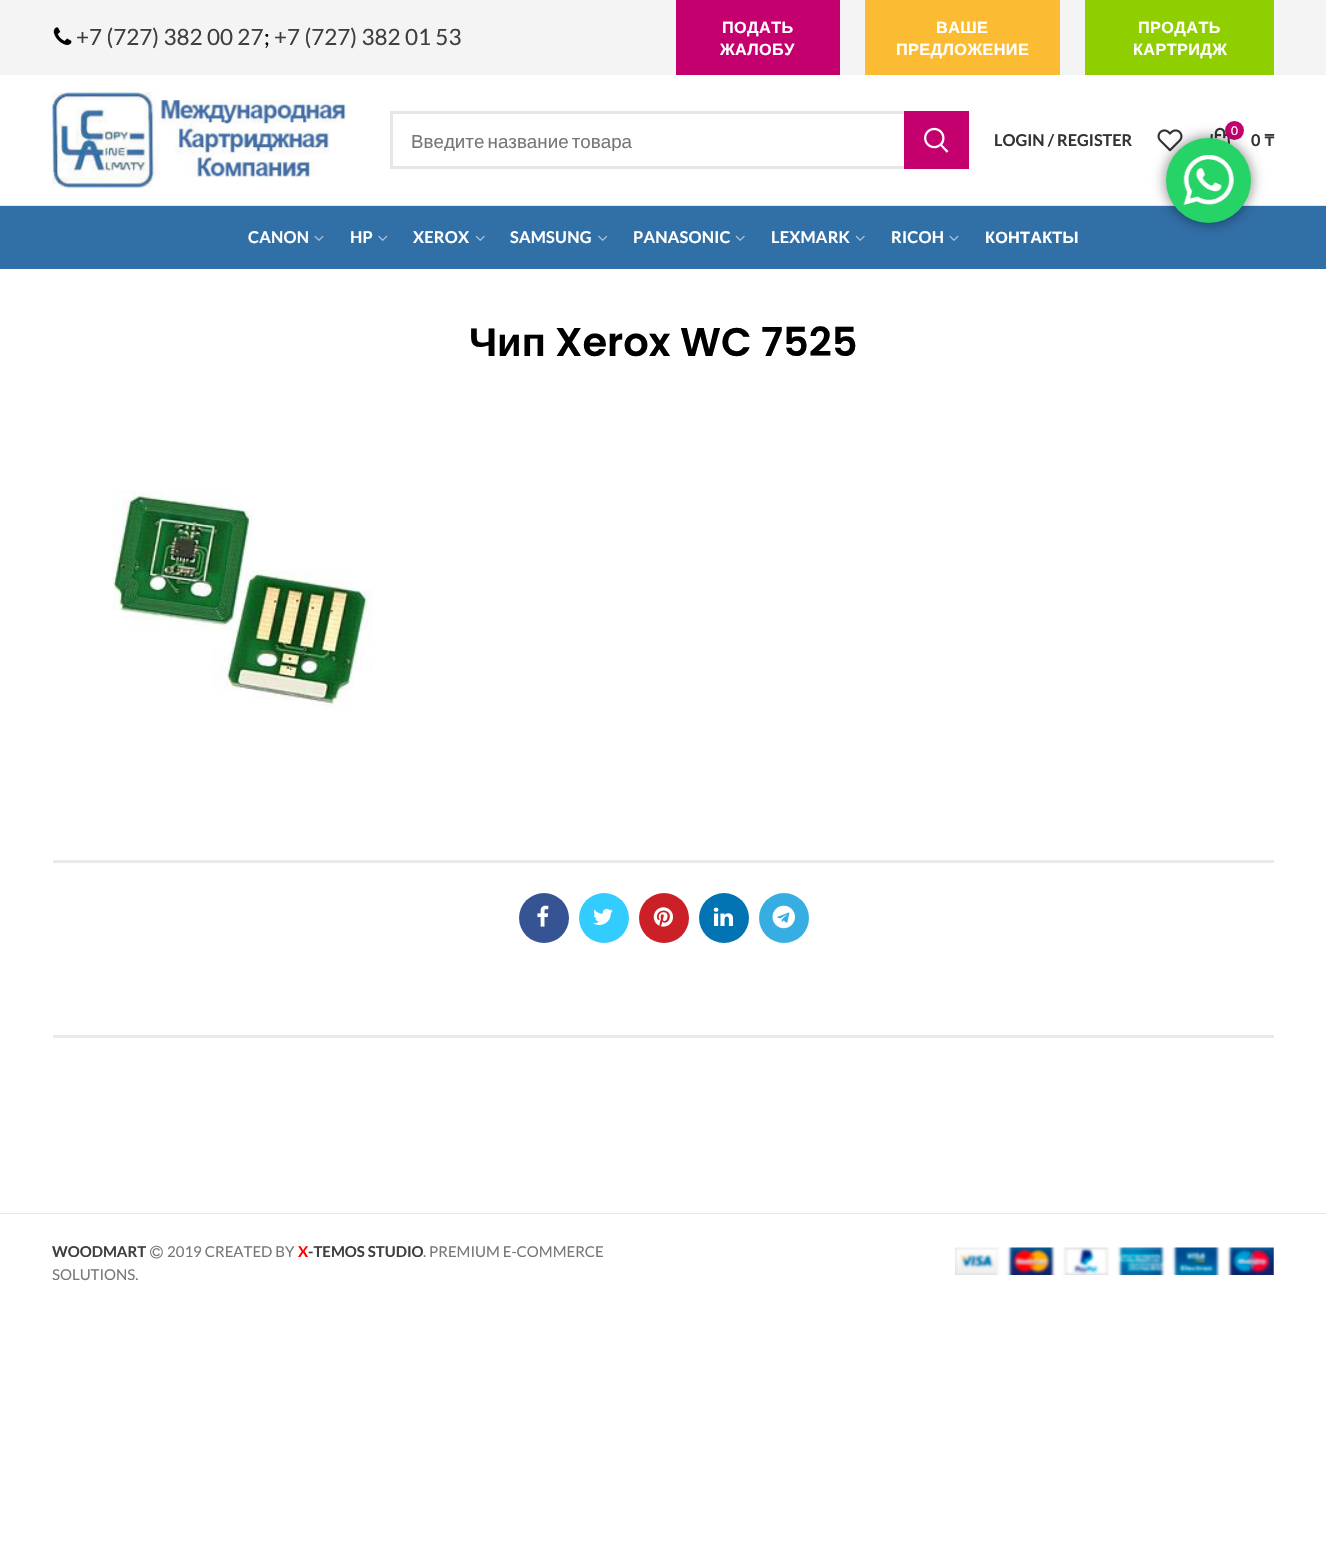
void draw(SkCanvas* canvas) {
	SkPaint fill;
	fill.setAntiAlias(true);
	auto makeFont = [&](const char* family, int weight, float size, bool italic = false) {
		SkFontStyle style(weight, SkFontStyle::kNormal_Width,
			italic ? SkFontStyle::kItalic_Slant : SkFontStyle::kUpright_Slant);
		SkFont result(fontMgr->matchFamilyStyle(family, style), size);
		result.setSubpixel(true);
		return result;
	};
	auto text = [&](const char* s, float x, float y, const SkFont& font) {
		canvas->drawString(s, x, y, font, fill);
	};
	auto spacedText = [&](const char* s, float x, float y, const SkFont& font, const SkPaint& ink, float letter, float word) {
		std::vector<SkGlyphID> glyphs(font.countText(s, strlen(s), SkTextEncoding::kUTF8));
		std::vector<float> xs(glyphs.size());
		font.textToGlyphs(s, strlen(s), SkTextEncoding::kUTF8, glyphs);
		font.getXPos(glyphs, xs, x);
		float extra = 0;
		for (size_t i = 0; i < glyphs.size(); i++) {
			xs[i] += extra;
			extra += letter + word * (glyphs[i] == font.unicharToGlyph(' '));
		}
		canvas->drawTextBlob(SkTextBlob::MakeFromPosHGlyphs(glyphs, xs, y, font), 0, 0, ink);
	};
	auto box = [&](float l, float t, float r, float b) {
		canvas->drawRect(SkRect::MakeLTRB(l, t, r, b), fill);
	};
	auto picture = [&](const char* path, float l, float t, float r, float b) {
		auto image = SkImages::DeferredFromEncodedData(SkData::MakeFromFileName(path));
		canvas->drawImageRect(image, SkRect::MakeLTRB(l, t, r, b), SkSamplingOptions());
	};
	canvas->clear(0xFFFFFFFF);
	fill.setColor(0xFFF4F4F4);
	box(0, 0, 1326, 75);
	picture("image0.png", 53, 27, 72, 45);
	fill.setColor(0xFFC3006E);
	box(676, 0, 840, 75);
	fill.setColor(0xFFFBBC34);
	box(865, 0, 1060, 75);
	fill.setColor(0xFF8FCF00);
	box(1085, 0, 1274, 75);
	fill.setColor(0xFFE6E6E6);
	box(0, 205, 1326, 206);
	picture("image1.png", 52, 92, 346, 189);
	fill.setStyle(SkPaint::kStroke_Style);
	fill.setStrokeWidth(3);
	canvas->drawRect(SkRect::MakeLTRB(391.5f, 112.5f, 967.5f, 167.5f), fill);
	fill.setStyle(SkPaint::kFill_Style);
	fill.setColor(0xFFC3006E);
	box(904, 111, 969, 169);
	picture("image2.png", 924, 127, 949, 153);
	picture("image3.png", 1157, 129, 1183, 152);
	picture("image4.png", 1210, 127, 1230, 144);
	canvas->drawCircle(1234.5f, 130.5f, 9.5f, fill);
	fill.setColor(0xFF316FA7);
	box(0, 206, 1326, 269);
	picture("image5.png", 314, 235, 324, 241);
	picture("image6.png", 378, 235, 388, 241);
	picture("image7.png", 475, 235, 485, 241);
	picture("image6.png", 598, 235, 608, 241);
	picture("image7.png", 735, 235, 745, 241);
	picture("image7.png", 855, 235, 865, 241);
	picture("image5.png", 949, 235, 959, 241);
	picture("image8.png", 112, 490, 373, 710);
	fill.setColor(0xFFEAEAEA);
	box(53, 860, 1274, 863);
	fill.setColor(0xFF365493);
	canvas->drawCircle(544, 918, 25, fill);
	picture("image9.png", 537, 905, 549, 927);
	fill.setColor(0xFF33CCFF);
	canvas->drawCircle(604, 918, 25, fill);
	picture("image10.png", 593, 908, 613, 925);
	fill.setColor(0xFFCB2027);
	canvas->drawCircle(664, 918, 25, fill);
	picture("image11.png", 653, 907, 673, 927);
	fill.setColor(0xFF0274B3);
	canvas->drawCircle(724, 918, 25, fill);
	picture("image12.png", 713, 907, 734, 926);
	fill.setColor(0xFF37AEE2);
	canvas->drawCircle(784, 918, 25, fill);
	picture("image13.png", 772, 905, 795, 929);
	fill.setColor(0xFFEAEAEA);
	box(53, 1035, 1274, 1038);
	fill.setColor(0xFFE6E6E6);
	box(0, 1213, 1326, 1214);
	picture("image14.png", 150, 1245, 163, 1259);
	picture("image15.png", 955, 1247, 1274, 1275);
	fill.setColor(0x80000000);
	fill.setMaskFilter(SkMaskFilter::MakeBlur(kNormal_SkBlurStyle, 7));
	canvas->drawRoundRect(SkRect::MakeLTRB(1166, 138, 1251, 223), 42.5f, 42.5f, fill);
	fill.setMaskFilter(nullptr);
	fill.setColor(0xFF25D366);
	canvas->drawCircle(1208.5f, 180.5f, 42.5f, fill);
	picture("image16.png", 1183, 155, 1234, 205);
	auto font1 = makeFont("Lato", 400, 22.5f);
	fill.setColor(0xFF3F3F3F);
	text("+7 (727) 382 00 27", 76, 45, font1);
	fill.setColor(0xFF000000);
	text(";", 264, 45, font1);
	fill.setColor(0xFF3F3F3F);
	text("+7 (727) 382 01 53", 274, 45, font1);
	auto font2 = makeFont("Liberation Sans", 700, 16.25f);
	fill.setColor(0xFFFFFFFF);
	spacedText("ПОДАТЬ", 722, 33, font2, fill, 0.4f, 0);
	spacedText("ЖАЛОБУ", 720, 55, font2, fill, 0.4f, 0);
	spacedText("ВАШЕ", 936, 33, font2, fill, 0.4f, 0);
	spacedText("ПРЕДЛОЖЕНИЕ", 896, 55, font2, fill, 0.4f, 0);
	spacedText("ПРОДАТЬ", 1138, 33, font2, fill, 0.4f, 0);
	spacedText("КАРТРИДЖ", 1133, 55, font2, fill, 0.4f, 0);
	canvas->save();
	canvas->clipRect(SkRect::MakeLTRB(411, 129, 904, 151));
	auto font3 = makeFont("Liberation Sans", 400, 18.75f);
	fill.setColor(0xFF777777);
	spacedText("Введите название товара", 411, 148, font3, fill, 0, -2);
	canvas->restore();
	auto font4 = makeFont("Lato", 700, 16.25f);
	fill.setColor(0xFF333333);
	text("LOGIN / REGISTER", 994, 146, font4);
	auto font5 = makeFont("Lato", 400, 12);
	fill.setColor(0xFFFFFFFF);
	text("0", 1231, 135, font5);
	fill.setColor(0xFF333333);
	text("0", 1251, 146, font4);
	auto font6 = makeFont("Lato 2", 700, 16.25f);
	text("₸", 1264, 146, font6);
	fill.setColor(0xFFFFFFFF);
	spacedText("CANON", 248, 243, font4, fill, 0.25f, 0);
	spacedText("HP", 350, 243, font4, fill, 0.25f, 0);
	spacedText("XEROX", 413, 243, font4, fill, 0.25f, 0);
	spacedText("SAMSUNG", 510, 243, font4, fill, 0.25f, 0);
	spacedText("PANASONIC", 633, 243, font4, fill, 0.25f, 0);
	spacedText("LEXMARK", 771, 243, font4, fill, 0.25f, 0);
	spacedText("RICOH", 891, 243, font4, fill, 0.25f, 0);
	spacedText("КОНТАКТЫ", 985, 243, font2, fill, 0.25f, 0);
	auto font7 = makeFont("Liberation Sans", 700, 40);
	fill.setColor(0xFF000000);
	text("Чип", 469, 356, font7);
	auto font8 = makeFont("Poppins", 600, 40);
	text("Xerox WC 7525", 555, 356, font8);
	auto font9 = makeFont("Lato", 700, 15);
	fill.setColor(0xFF3F3F3F);
	text("WOODMART", 52, 1257, font9);
	auto font10 = makeFont("Lato", 400, 15);
	fill.setColor(0xFF777777);
	text("2019 CREATED BY", 167, 1257, font10);
	fill.setColor(0xFFFF0000);
	text("X", 298, 1257, font9);
	fill.setColor(0xFF3F3F3F);
	text("-TEMOS STUDIO", 308, 1257, font9);
	fill.setColor(0xFF777777);
	text(". PREMIUM E-COMMERCE", 423, 1257, font10);
	text("SOLUTIONS.", 52, 1280, font10);
}
